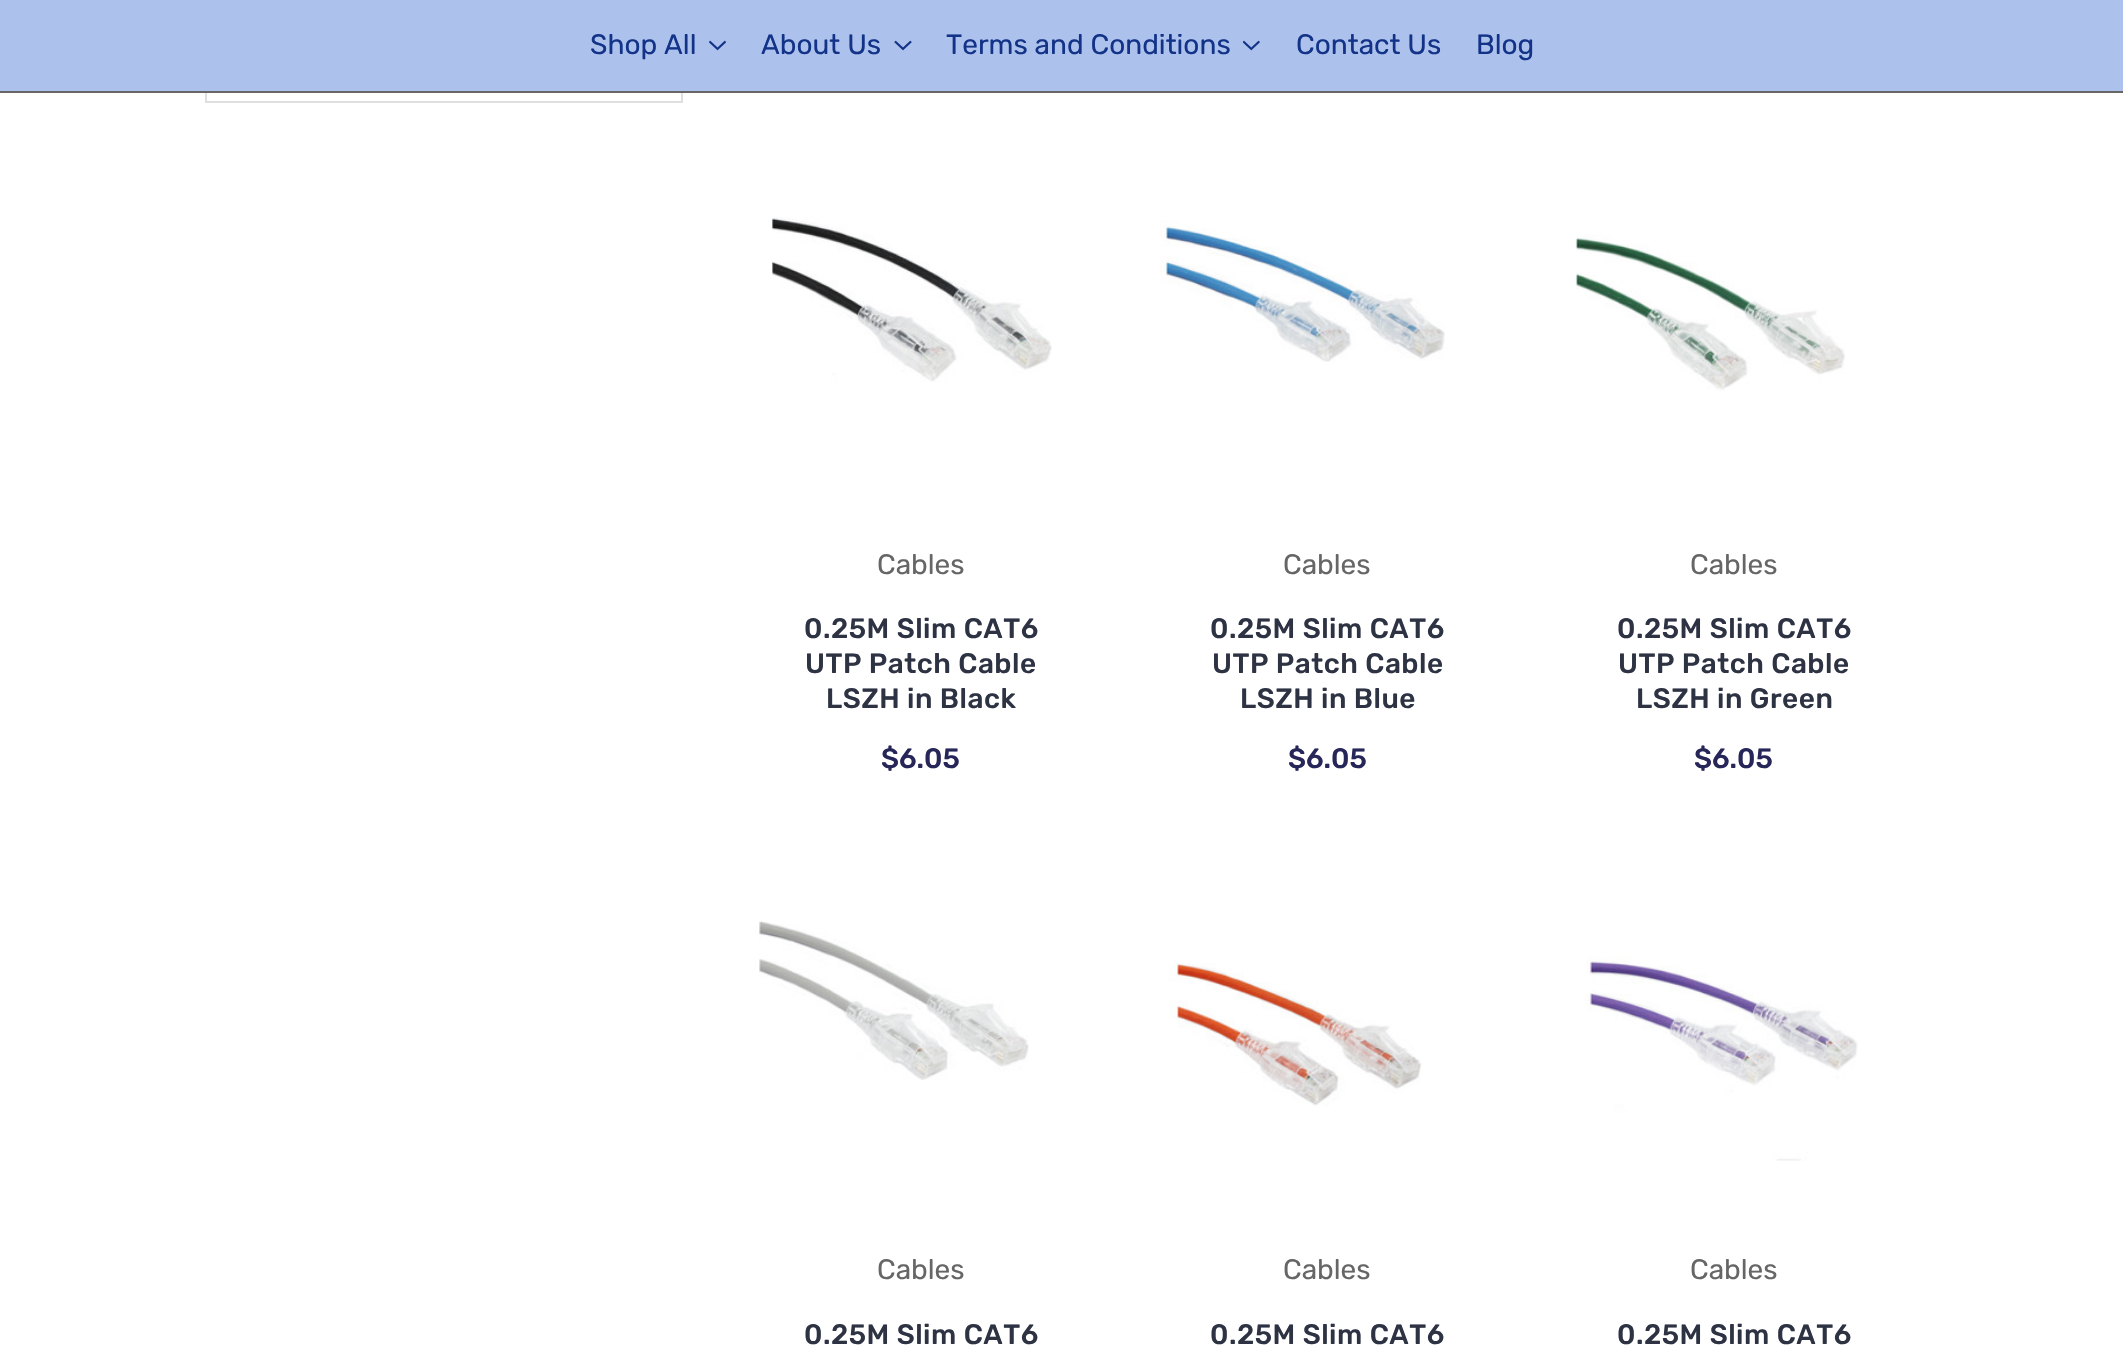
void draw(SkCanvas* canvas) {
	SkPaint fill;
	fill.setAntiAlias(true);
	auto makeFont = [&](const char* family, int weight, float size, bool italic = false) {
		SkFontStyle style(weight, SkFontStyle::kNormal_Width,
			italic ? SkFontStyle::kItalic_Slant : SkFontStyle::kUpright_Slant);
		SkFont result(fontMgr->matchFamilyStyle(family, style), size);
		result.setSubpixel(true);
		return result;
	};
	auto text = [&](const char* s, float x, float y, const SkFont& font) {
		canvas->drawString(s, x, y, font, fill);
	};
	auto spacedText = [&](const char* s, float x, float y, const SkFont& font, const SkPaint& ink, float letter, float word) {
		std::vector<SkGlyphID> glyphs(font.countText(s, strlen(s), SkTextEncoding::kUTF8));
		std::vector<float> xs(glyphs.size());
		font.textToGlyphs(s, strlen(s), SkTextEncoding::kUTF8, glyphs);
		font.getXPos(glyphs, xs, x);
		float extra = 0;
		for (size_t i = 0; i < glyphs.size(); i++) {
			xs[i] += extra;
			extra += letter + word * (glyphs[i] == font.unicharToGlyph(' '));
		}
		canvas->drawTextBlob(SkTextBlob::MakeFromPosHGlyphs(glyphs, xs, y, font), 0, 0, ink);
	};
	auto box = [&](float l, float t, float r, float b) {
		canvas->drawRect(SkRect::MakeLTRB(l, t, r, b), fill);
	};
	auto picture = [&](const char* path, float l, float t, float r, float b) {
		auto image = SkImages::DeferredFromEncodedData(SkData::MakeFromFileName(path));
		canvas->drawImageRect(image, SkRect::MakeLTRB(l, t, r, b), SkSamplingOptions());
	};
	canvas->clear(0xFFFFFFFF);
	fill.setStyle(SkPaint::kStroke_Style);
	fill.setStrokeWidth(2);
	fill.setColor(0xFFDFDFDF);
	canvas->drawRect(SkRect::MakeLTRB(206, 13, 682, 102), fill);
	fill.setStyle(SkPaint::kFill_Style);
	fill.setColor(0xFFADC1ED);
	box(0, 0, 2123, 91);
	fill.setColor(0xFF666666);
	box(0, 91, 2123, 93);
	picture("image0.png", 709, 40, 726, 51);
	picture("image1.png", 894, 40, 912, 51);
	picture("image2.png", 1243, 40, 1260, 51);
	picture("image3.png", 772, 217, 1052, 382);
	picture("image4.png", 1160, 220, 1445, 362);
	picture("image5.png", 1575, 234, 1845, 391);
	picture("image6.png", 759, 921, 1029, 1080);
	picture("image7.png", 1169, 963, 1422, 1106);
	picture("image8.png", 1586, 956, 1858, 1161);
	auto font1 = makeFont("Rubik", 400, 28);
	fill.setColor(0xFF123387);
	text("Shop All", 590, 54, font1);
	text("About Us", 761, 54, font1);
	text("Terms and Conditions", 946, 54, font1);
	text("Contact Us", 1296, 54, font1);
	text("Blog", 1476, 54, font1);
	fill.setColor(0xFF666666);
	text("Cables", 877, 574, font1);
	auto font2 = makeFont("Rubik", 500, 28);
	fill.setColor(0xFF2E3344);
	spacedText("0.25M Slim CAT6", 804, 638, font2, fill, 0.5f, 0);
	spacedText("UTP Patch Cable", 805, 673, font2, fill, 0.5f, 0);
	spacedText("LSZH in Black", 826, 708, font2, fill, 0.5f, 0);
	fill.setColor(0xFF272659);
	text("$6.05", 881, 768, font2);
	fill.setColor(0xFF666666);
	text("Cables", 1283, 574, font1);
	fill.setColor(0xFF2E3344);
	spacedText("0.25M Slim CAT6", 1210, 638, font2, fill, 0.5f, 0);
	spacedText("UTP Patch Cable", 1212, 673, font2, fill, 0.5f, 0);
	spacedText("LSZH in Blue", 1240, 708, font2, fill, 0.5f, 0);
	fill.setColor(0xFF272659);
	text("$6.05", 1288, 768, font2);
	fill.setColor(0xFF666666);
	text("Cables", 1690, 574, font1);
	fill.setColor(0xFF2E3344);
	spacedText("0.25M Slim CAT6", 1617, 638, font2, fill, 0.5f, 0);
	spacedText("UTP Patch Cable", 1618, 673, font2, fill, 0.5f, 0);
	spacedText("LSZH in Green", 1636, 708, font2, fill, 0.5f, 0);
	fill.setColor(0xFF272659);
	text("$6.05", 1694, 768, font2);
	fill.setColor(0xFF666666);
	text("Cables", 877, 1279, font1);
	fill.setColor(0xFF2E3344);
	spacedText("0.25M Slim CAT6", 804, 1344, font2, fill, 0.5f, 0);
	fill.setColor(0xFF666666);
	text("Cables", 1283, 1279, font1);
	fill.setColor(0xFF2E3344);
	spacedText("0.25M Slim CAT6", 1210, 1344, font2, fill, 0.5f, 0);
	fill.setColor(0xFF666666);
	text("Cables", 1690, 1279, font1);
	fill.setColor(0xFF2E3344);
	spacedText("0.25M Slim CAT6", 1617, 1344, font2, fill, 0.5f, 0);
}
